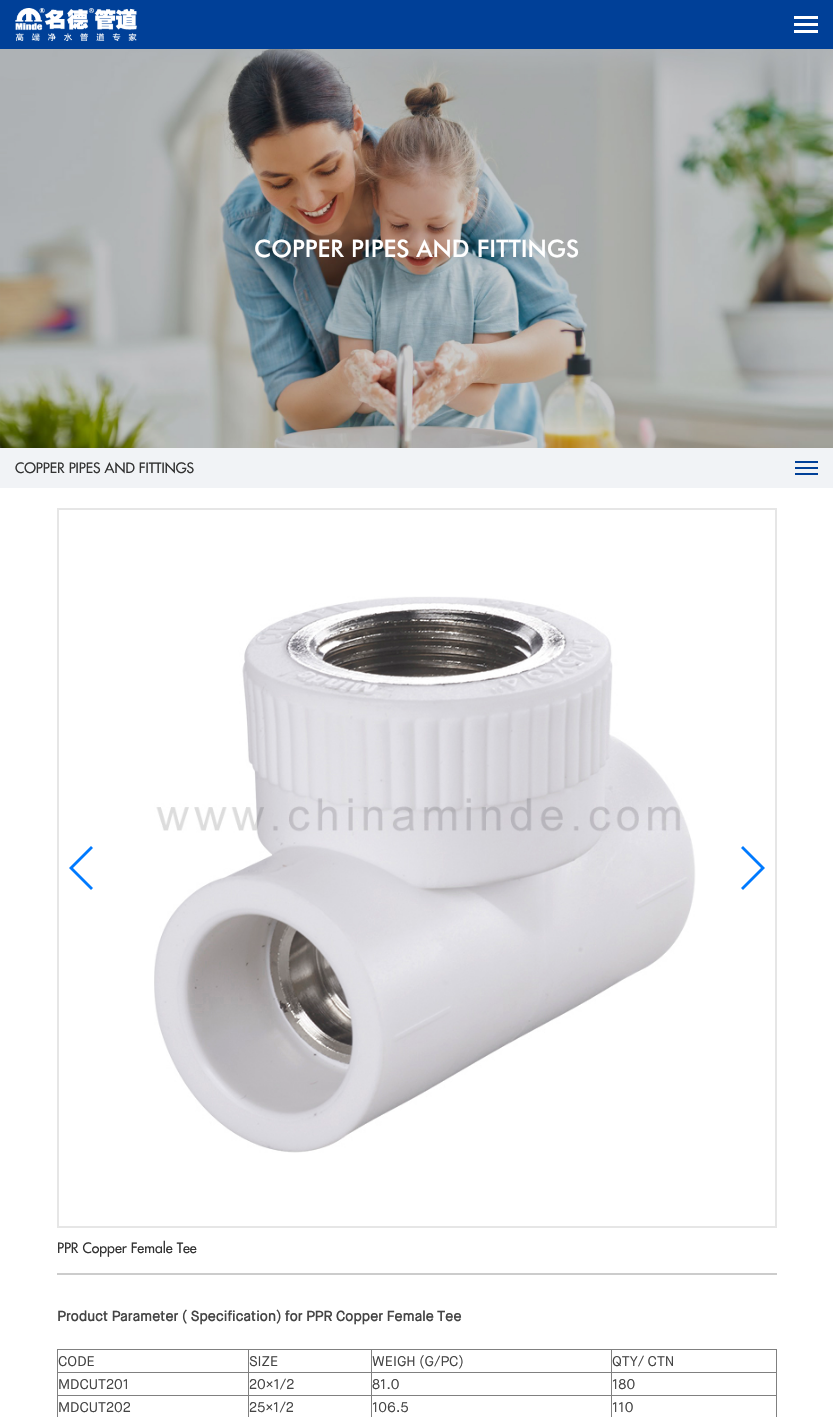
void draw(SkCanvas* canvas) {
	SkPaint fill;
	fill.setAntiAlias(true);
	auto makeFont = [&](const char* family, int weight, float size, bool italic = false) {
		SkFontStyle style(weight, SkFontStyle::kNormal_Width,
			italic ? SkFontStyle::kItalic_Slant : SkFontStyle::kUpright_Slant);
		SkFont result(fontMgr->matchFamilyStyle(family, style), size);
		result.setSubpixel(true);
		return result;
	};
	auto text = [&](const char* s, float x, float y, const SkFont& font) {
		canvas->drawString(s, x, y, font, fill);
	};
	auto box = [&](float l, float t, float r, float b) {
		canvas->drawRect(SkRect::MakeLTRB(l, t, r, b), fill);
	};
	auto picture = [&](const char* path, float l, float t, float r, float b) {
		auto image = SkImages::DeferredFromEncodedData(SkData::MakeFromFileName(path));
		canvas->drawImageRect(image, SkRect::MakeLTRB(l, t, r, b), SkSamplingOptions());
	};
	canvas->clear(0xFFFFFFFF);
	fill.setColor(0xFF004098);
	box(0, 0, 833, 49);
	picture("image0.png", 15, 8, 137, 41);
	fill.setColor(0xFFFFFFFF);
	box(794, 16, 818, 19);
	box(794, 23, 818, 26);
	box(794, 30, 818, 33);
	picture("image1.png", 0, 49, 833, 448);
	fill.setColor(0xFFF1F3F6);
	box(0, 448, 833, 488);
	fill.setColor(0xFF004098);
	box(795, 461, 818, 463);
	box(795, 467, 818, 469);
	box(795, 473, 818, 475);
	fill.setStyle(SkPaint::kStroke_Style);
	fill.setStrokeWidth(2);
	fill.setColor(0xFFE6E6E6);
	canvas->drawRect(SkRect::MakeLTRB(58, 509, 776, 1227), fill);
	fill.setStyle(SkPaint::kFill_Style);
	fill.setColor(0xFF007AFF);
	canvas->drawPath(SkPathBuilder().moveTo(69, 868).lineTo(91, 846).lineTo(93, 848).lineTo(73, 868).lineTo(93, 888).lineTo(91, 890).close().detach(), fill);
	picture("image2.png", 154, 596, 696, 1153);
	canvas->drawPath(SkPathBuilder().moveTo(765, 868).lineTo(743, 890).lineTo(741, 888).lineTo(761, 868).lineTo(741, 848).lineTo(743, 846).close().detach(), fill);
	fill.setColor(0xFFCCCCCC);
	box(57, 1273, 777, 1275);
	fill.setColor(0xFF808080);
	box(57, 1349, 777, 1350);
	box(776, 1349, 777, 1417);
	box(57, 1349, 58, 1417);
	box(611, 1372, 777, 1373);
	box(611, 1395, 777, 1396);
	box(611, 1395, 612, 1417);
	box(371, 1395, 612, 1396);
	box(611, 1372, 612, 1396);
	box(371, 1372, 612, 1373);
	box(371, 1395, 372, 1417);
	box(248, 1395, 372, 1396);
	box(371, 1372, 372, 1396);
	box(248, 1372, 372, 1373);
	box(248, 1395, 249, 1417);
	box(57, 1395, 249, 1396);
	box(248, 1372, 249, 1396);
	box(57, 1372, 249, 1373);
	box(248, 1349, 249, 1373);
	box(371, 1349, 372, 1373);
	box(611, 1349, 612, 1373);
	auto font1 = makeFont("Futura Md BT", 500, 24);
	fill.setColor(0xFFFFFFFF);
	text("COPPER PIPES AND FITTINGS", 254, 257, font1);
	auto font2 = makeFont("Futura", 500, 14);
	fill.setColor(0xFF333333);
	text("COPPER PIPES AND FITTINGS", 15, 473, font2);
	text("PPR Copper Female Tee", 57, 1253, font2);
	auto font3 = makeFont("Maison Neue", 700, 14);
	fill.setColor(0xFF444444);
	text("Product Parameter ( Specification) for PPR Copper Female Tee", 57, 1321, font3);
	auto font4 = makeFont("Maison Neue", 400, 14);
	text("CODE", 58, 1366, font4);
	text("SIZE", 249, 1366, font4);
	text("WEIGH (G/PC)", 372, 1366, font4);
	text("QTY/ CTN", 612, 1366, font4);
	text("MDCUT201", 58, 1389, font4);
	text("20×1/2", 249, 1389, font4);
	text("81.0", 372, 1389, font4);
	text("180", 612, 1389, font4);
	text("MDCUT202", 58, 1412, font4);
	text("25×1/2", 249, 1412, font4);
	text("106.5", 372, 1412, font4);
	text("110", 612, 1412, font4);
}
